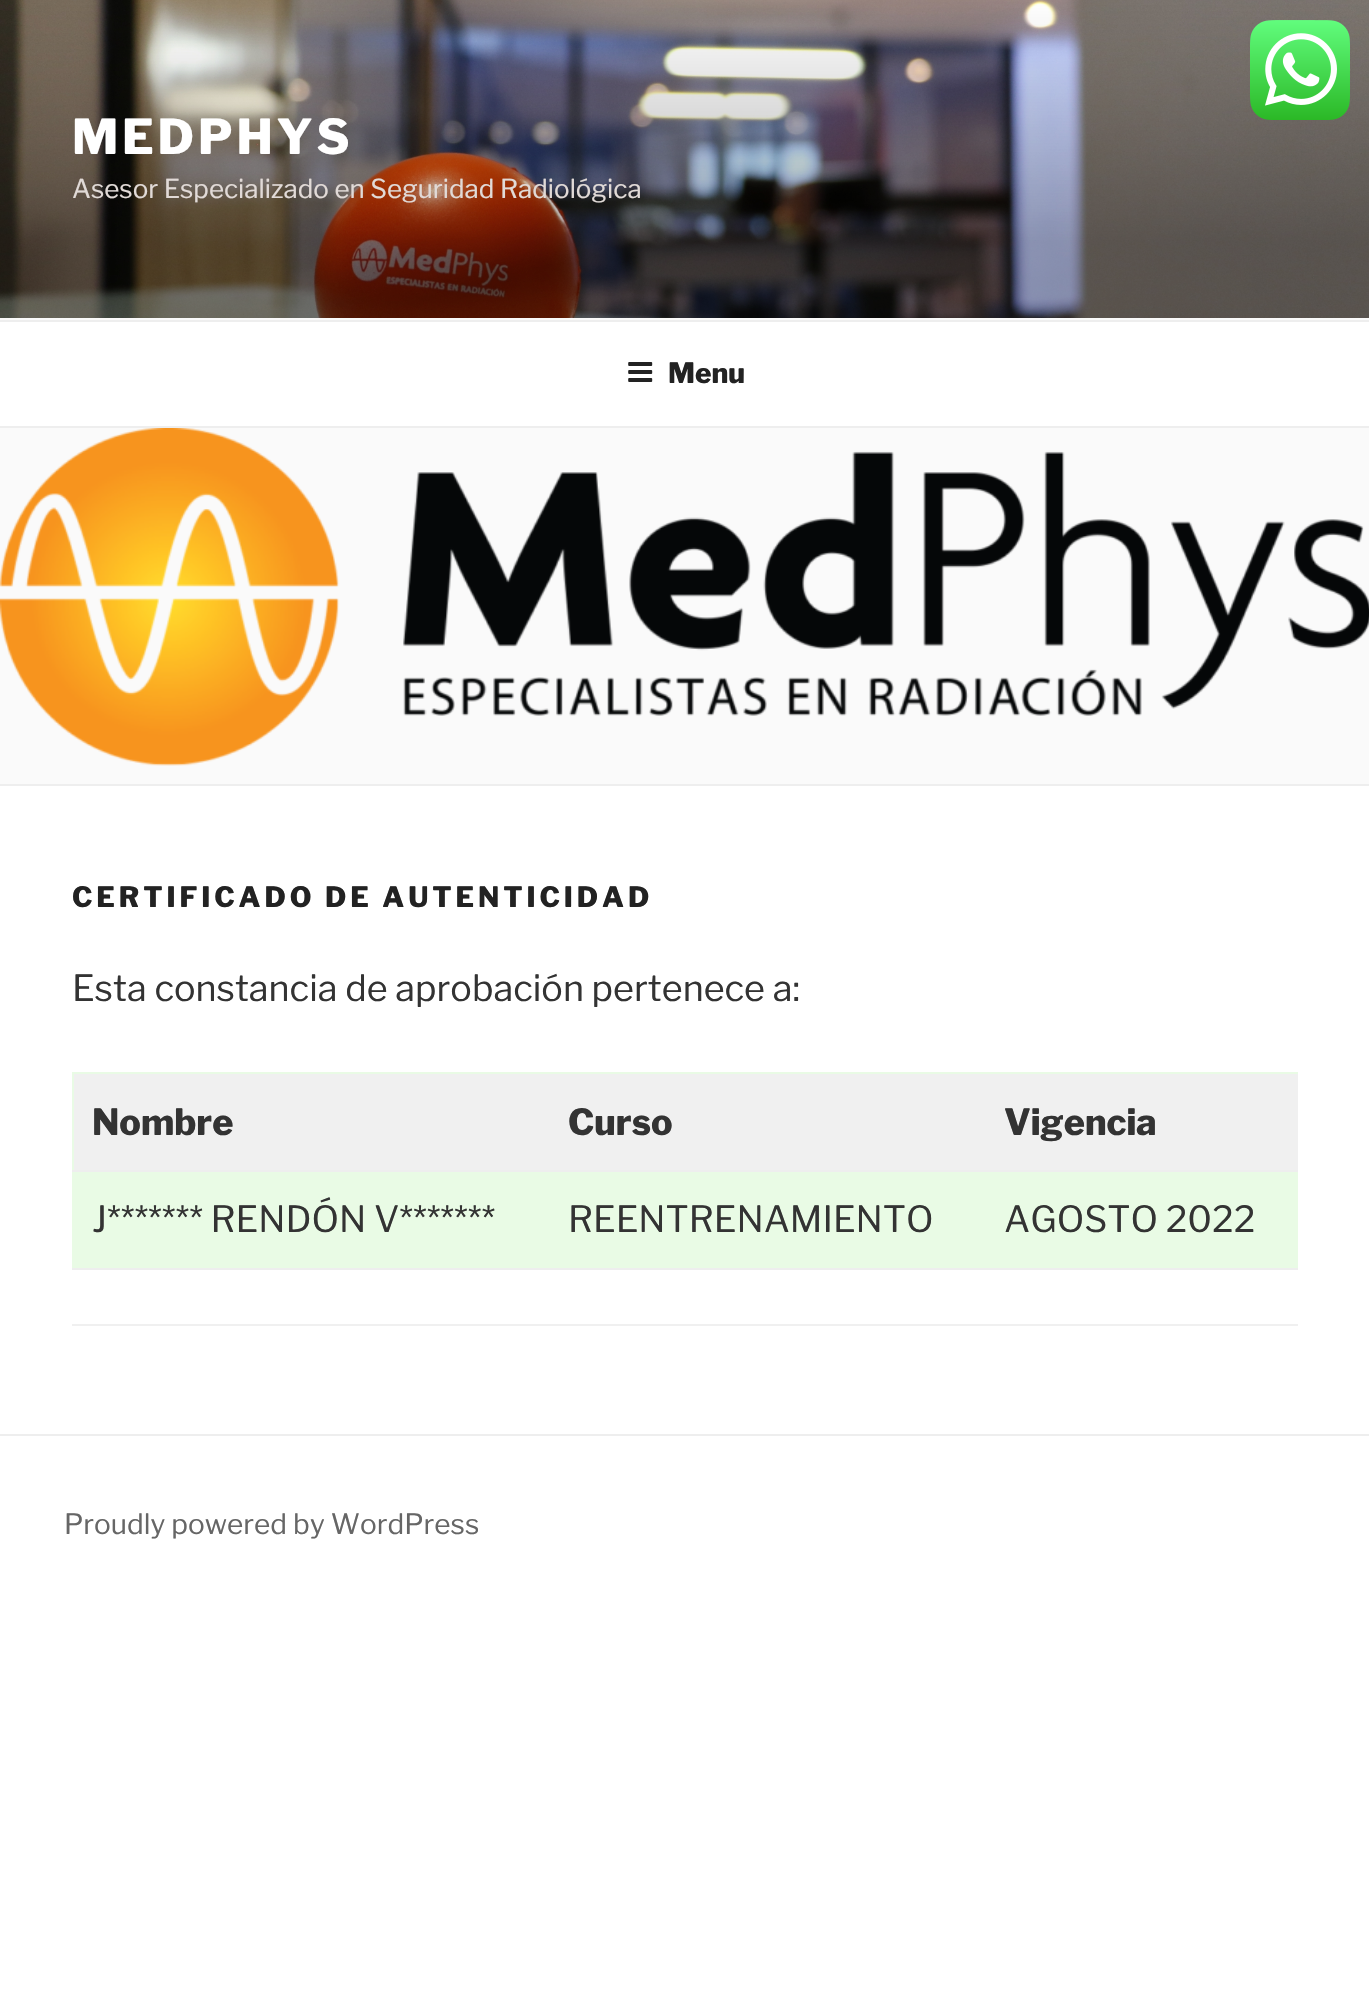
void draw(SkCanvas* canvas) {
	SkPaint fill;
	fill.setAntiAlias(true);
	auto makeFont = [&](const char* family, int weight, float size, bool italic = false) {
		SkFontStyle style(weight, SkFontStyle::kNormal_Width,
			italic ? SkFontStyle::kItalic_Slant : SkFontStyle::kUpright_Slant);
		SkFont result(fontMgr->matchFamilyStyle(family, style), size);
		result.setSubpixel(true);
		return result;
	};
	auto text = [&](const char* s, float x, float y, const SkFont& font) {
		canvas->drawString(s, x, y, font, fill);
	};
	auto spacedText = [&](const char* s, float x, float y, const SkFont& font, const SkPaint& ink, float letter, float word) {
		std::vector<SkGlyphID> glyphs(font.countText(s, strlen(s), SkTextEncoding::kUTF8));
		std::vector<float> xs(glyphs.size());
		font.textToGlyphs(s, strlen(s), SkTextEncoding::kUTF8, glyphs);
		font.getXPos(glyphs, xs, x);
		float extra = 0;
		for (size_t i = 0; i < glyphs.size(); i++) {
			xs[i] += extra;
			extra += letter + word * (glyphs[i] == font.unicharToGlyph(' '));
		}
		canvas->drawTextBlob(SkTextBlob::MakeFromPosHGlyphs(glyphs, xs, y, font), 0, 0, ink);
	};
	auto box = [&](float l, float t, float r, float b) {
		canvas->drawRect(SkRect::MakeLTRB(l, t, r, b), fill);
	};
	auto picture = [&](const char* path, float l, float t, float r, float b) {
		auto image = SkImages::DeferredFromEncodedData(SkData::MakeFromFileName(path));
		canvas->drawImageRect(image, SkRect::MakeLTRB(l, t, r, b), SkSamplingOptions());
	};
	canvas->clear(0xFFFFFFFF);
	picture("image1.png", 0, 0, 1369, 318);
	picture("image0.png", 1250, 20, 1350, 120);
	fill.setColor(0xFFFAFAFA);
	box(0, 318, 1369, 320);
	fill.setColor(0xFFEEEEEE);
	box(0, 320, 1369, 322);
	box(0, 426, 1369, 428);
	picture("image2.png", 628, 362, 653, 382);
	fill.setColor(0xFFFAFAFA);
	box(0, 428, 1369, 784);
	fill.setColor(0xFFEEEEEE);
	box(0, 784, 1369, 786);
	picture("image3.png", 0, 428, 1369, 766);
	fill.setColor(0xFFF0F0F0);
	box(72, 1324, 1298, 1326);
	fill.setColor(0xFFE9FBE5);
	box(72, 1072, 1298, 1268);
	fill.setColor(0xFFF0F0F0);
	box(74, 1074, 1298, 1170);
	fill.setColor(0xFFEEEEEE);
	box(72, 1170, 1298, 1172);
	box(72, 1268, 1298, 1270);
	box(0, 1434, 1369, 1436);
	auto font1 = makeFont("Libre Franklin", 100, 48);
	fill.setColor(0xFFFFFFFF);
	spacedText("MEDPHYS", 72, 154, font1, fill, 3.75f, 0);
	auto font2 = makeFont("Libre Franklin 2", 100, 26);
	fill.setColor(0xFFE1DAD7);
	text("Asesor Especializado en Seguridad Radiológica", 72, 198, font2);
	auto font3 = makeFont("Libre Franklin", 100, 28);
	fill.setColor(0xFF222222);
	text("Menu", 668, 383, font3);
	spacedText("CERTIFICADO DE AUTENTICIDAD", 72, 907, font3, fill, 3.9f, 0);
	auto font4 = makeFont("Libre Franklin 2", 100, 36);
	fill.setColor(0xFF333333);
	text("Esta constancia de aprobación pertenece a:", 72, 1001, font4);
	auto font5 = makeFont("Libre Franklin", 100, 36);
	text("Nombre", 92, 1135, font5);
	text("Curso", 568, 1135, font5);
	text("Vigencia", 1004, 1135, font5);
	text("J******* RENDÓN V*******", 92, 1232, font4);
	text("REENTRENAMIENTO", 568, 1232, font4);
	text("AGOSTO 2022", 1004, 1232, font4);
	auto font6 = makeFont("Libre Franklin 2", 100, 28);
	fill.setColor(0xFF666666);
	text("Proudly powered by WordPress", 64, 1534, font6);
}
